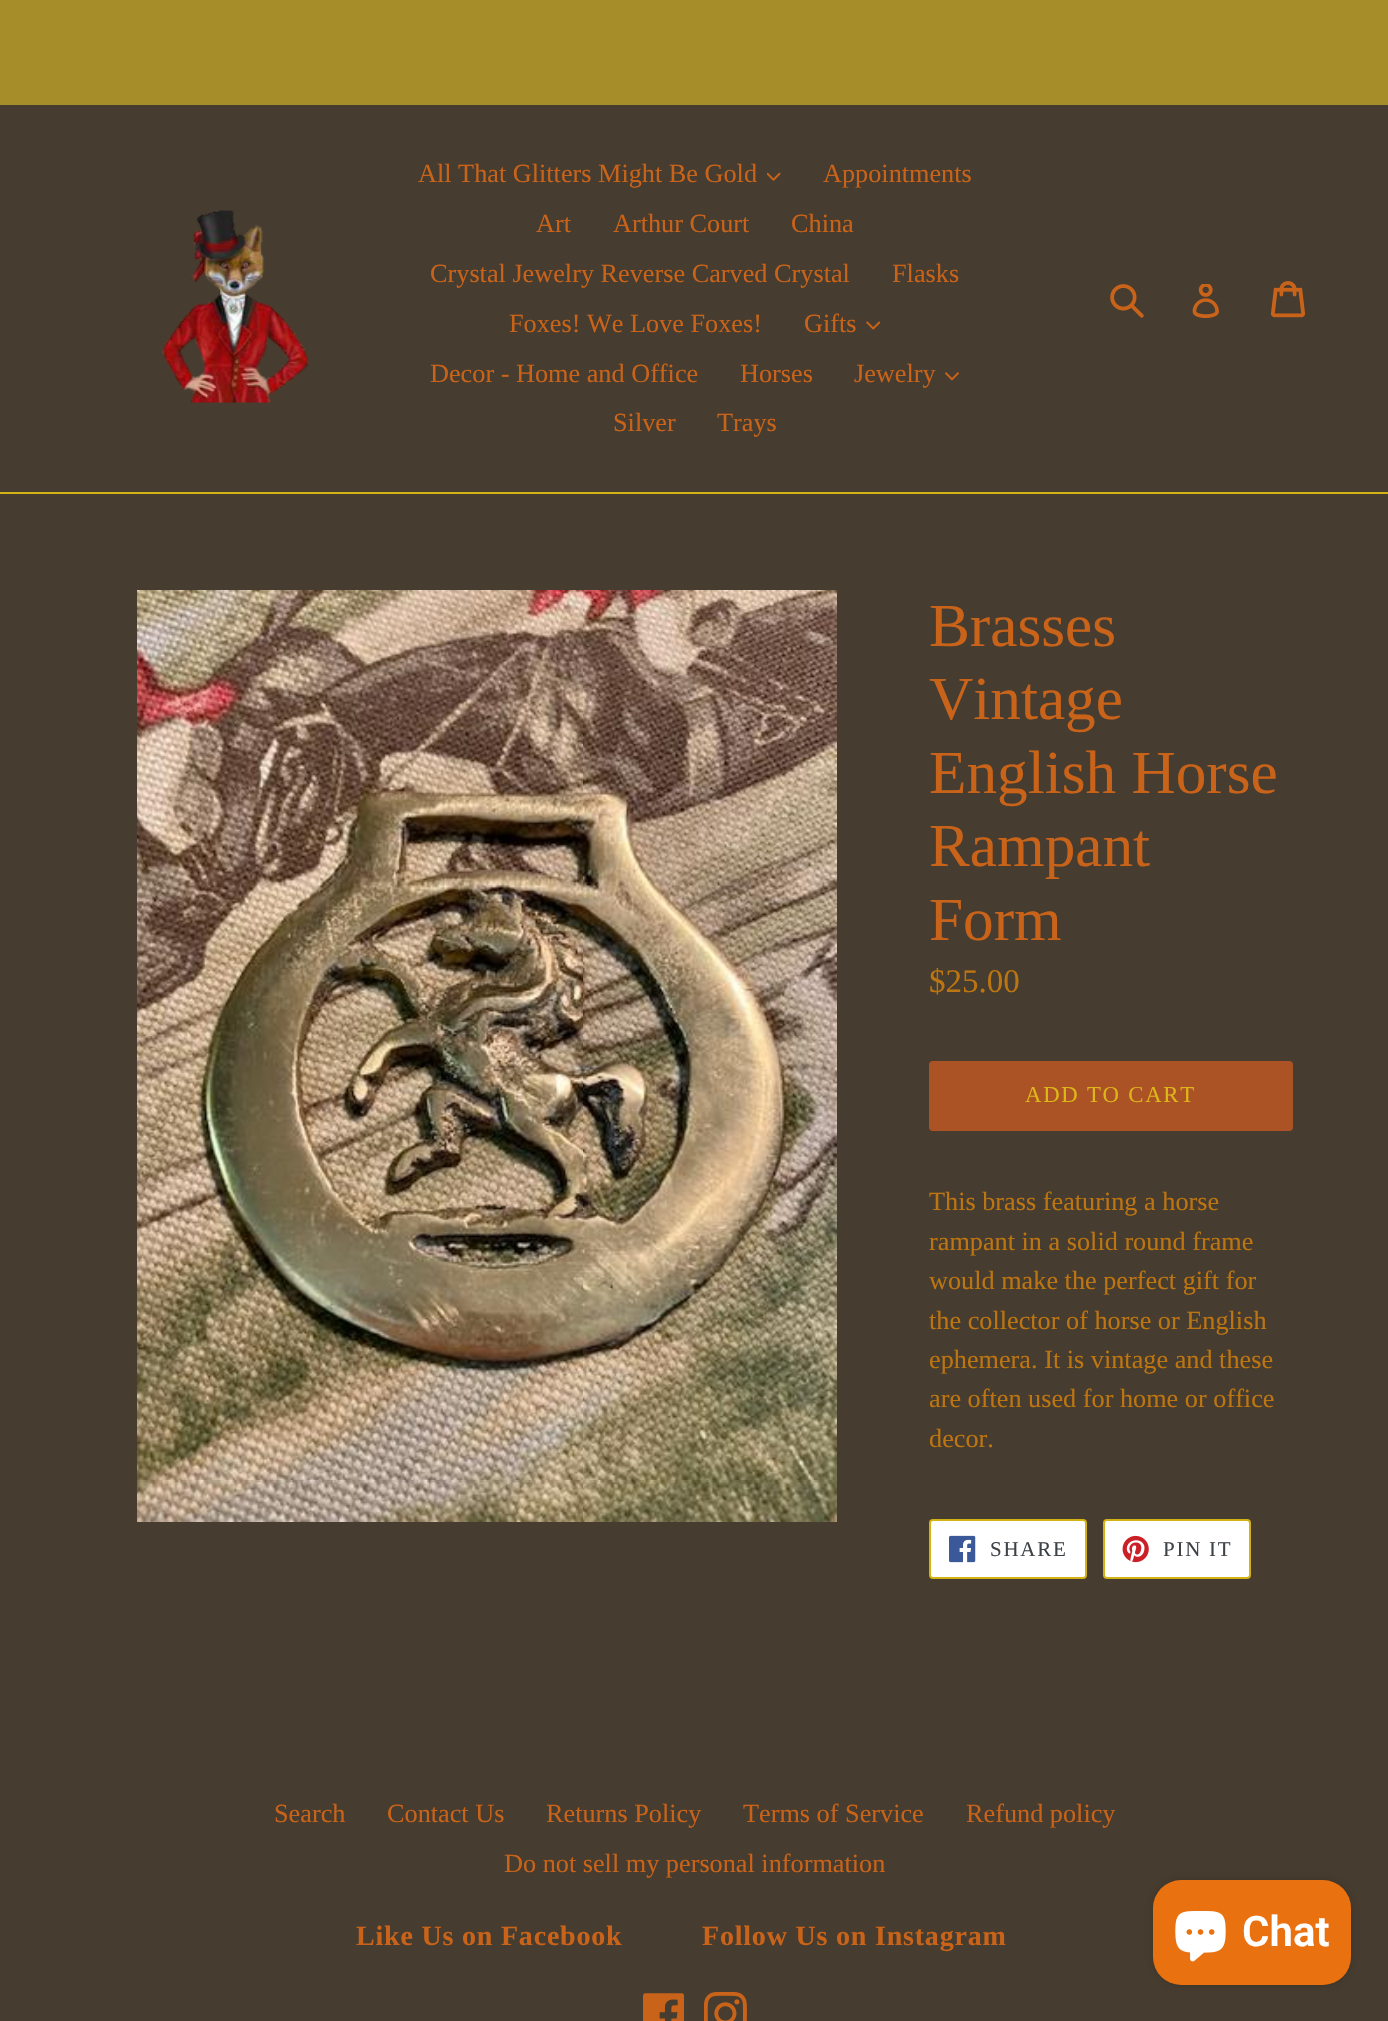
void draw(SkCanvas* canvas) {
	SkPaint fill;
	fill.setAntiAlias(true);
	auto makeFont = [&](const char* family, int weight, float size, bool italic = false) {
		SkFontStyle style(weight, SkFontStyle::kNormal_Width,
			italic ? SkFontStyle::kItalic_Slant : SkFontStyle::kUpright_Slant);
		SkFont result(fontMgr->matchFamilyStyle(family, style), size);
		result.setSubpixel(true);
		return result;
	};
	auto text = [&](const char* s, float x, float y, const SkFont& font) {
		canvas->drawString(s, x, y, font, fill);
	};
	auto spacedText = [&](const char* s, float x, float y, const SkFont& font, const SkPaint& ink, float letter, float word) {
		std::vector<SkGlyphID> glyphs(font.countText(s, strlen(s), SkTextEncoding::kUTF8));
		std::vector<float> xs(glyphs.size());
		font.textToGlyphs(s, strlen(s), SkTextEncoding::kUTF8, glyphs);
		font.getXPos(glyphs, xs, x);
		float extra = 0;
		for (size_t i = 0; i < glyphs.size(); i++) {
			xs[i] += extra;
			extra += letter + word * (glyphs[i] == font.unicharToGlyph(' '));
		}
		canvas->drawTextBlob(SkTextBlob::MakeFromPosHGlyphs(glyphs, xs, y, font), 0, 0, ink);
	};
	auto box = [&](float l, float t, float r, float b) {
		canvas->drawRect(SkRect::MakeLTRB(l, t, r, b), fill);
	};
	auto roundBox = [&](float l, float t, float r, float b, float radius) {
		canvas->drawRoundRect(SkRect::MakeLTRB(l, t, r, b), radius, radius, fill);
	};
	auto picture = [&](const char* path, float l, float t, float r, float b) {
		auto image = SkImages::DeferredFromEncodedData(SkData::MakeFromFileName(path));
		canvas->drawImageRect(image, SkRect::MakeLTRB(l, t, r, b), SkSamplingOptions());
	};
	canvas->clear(0xFF463C2F);
	fill.setColor(0xFFA78C2A);
	box(0, 0, 1388, 105);
	fill.setColor(0xFFD3B213);
	box(0, 492, 1388, 494);
	picture("image0.png", 162, 210, 309, 403);
	picture("image1.png", 767, 172, 781, 181);
	picture("image2.png", 866, 321, 880, 330);
	picture("image3.png", 945, 372, 959, 381);
	picture("image4.png", 1110, 284, 1144, 318);
	picture("image5.png", 1192, 284, 1219, 318);
	picture("image6.png", 1271, 281, 1305, 318);
	picture("image7.png", 137, 590, 837, 1522);
	fill.setColor(0xFFAC5326);
	roundBox(929, 1061, 1293, 1131, 4);
	fill.setColor(0xFFFFFFFF);
	canvas->drawRoundRect(SkRect::MakeLTRB(930, 1520, 1086, 1578), 3, 3, fill);
	fill.setStyle(SkPaint::kStroke_Style);
	fill.setStrokeWidth(2);
	fill.setColor(0xFFD3B213);
	canvas->drawRoundRect(SkRect::MakeLTRB(930, 1520, 1086, 1578), 3, 3, fill);
	picture("image8.png", 949, 1535, 976, 1563);
	fill.setStyle(SkPaint::kFill_Style);
	fill.setColor(0xFFFFFFFF);
	canvas->drawRoundRect(SkRect::MakeLTRB(1104, 1520, 1250, 1578), 3, 3, fill);
	fill.setStyle(SkPaint::kStroke_Style);
	fill.setColor(0xFFD3B213);
	canvas->drawRoundRect(SkRect::MakeLTRB(1104, 1520, 1250, 1578), 3, 3, fill);
	picture("image9.png", 1122, 1535, 1149, 1563);
	picture("image10.png", 643, 1993, 684, 2021);
	picture("image11.png", 704, 1992, 747, 2021);
	fill.setStyle(SkPaint::kFill_Style);
	fill.setColor(0x26000000);
	fill.setMaskFilter(SkMaskFilter::MakeBlur(kNormal_SkBlurStyle, 4.5f));
	canvas->drawRoundRect(SkRect::MakeLTRB(1153, 1880, 1351, 1985), 28, 28, fill);
	fill.setMaskFilter(nullptr);
	fill.setColor(0xFFEA710F);
	roundBox(1153, 1880, 1351, 1985, 28);
	picture("image12.png", 1175, 1911, 1226, 1962);
	auto font1 = makeFont("Liberation Serif", 400, 26.25f);
	fill.setColor(0xFFC96319);
	text("All That Glitters Might Be Gold", 418, 182, font1);
	text("Appointments", 823, 182, font1);
	text("Art", 536, 232, font1);
	text("Arthur Court", 613, 232, font1);
	text("China", 791, 232, font1);
	text("Crystal Jewelry Reverse Carved Crystal", 430, 282, font1);
	text("Flasks", 892, 282, font1);
	text("Foxes! We Love Foxes!", 509, 332, font1);
	text("Gifts", 804, 332, font1);
	text("Decor - Home and Office", 430, 382, font1);
	text("Horses", 740, 382, font1);
	text("Jewelry", 854, 382, font1);
	text("Silver", 613, 431, font1);
	text("Trays", 717, 431, font1);
	auto font2 = makeFont("Liberation Serif", 400, 61.25f);
	text("Brasses", 929, 646, font2);
	text("Vintage", 929, 719, font2);
	text("English Horse", 929, 793, font2);
	text("Rampant", 929, 866, font2);
	text("Form", 929, 940, font2);
	auto font3 = makeFont("Liberation Serif", 400, 33);
	fill.setColor(0xFFBD7511);
	text("$25.00", 929, 992, font3);
	auto font4 = makeFont("Liberation Serif", 400, 22.75f);
	fill.setColor(0xFFDDB618);
	spacedText("ADD TO CART", 1025, 1102, font4, fill, 1.75f, 0);
	fill.setColor(0xFFBD7511);
	text("This brass featuring a horse", 929, 1210, font1);
	text("rampant in a solid round frame", 929, 1250, font1);
	text("would make the perfect gift for", 929, 1289, font1);
	text("the collector of horse or English", 929, 1329, font1);
	text("ephemera. It is vintage and these", 929, 1368, font1);
	text("are often used for home or office", 929, 1407, font1);
	text("decor.", 929, 1447, font1);
	auto font5 = makeFont("Liberation Serif", 400, 21);
	fill.setColor(0xFF3D4246);
	spacedText("SHARE", 990, 1556, font5, fill, 1.75f, 0);
	spacedText("PIN IT", 1163, 1556, font5, fill, 1.75f, 0);
	fill.setColor(0xFFC96319);
	text("Search", 274, 1822, font1);
	text("Contact Us", 387, 1822, font1);
	text("Returns Policy", 546, 1822, font1);
	text("Terms of Service", 743, 1822, font1);
	text("Refund policy", 966, 1822, font1);
	text("Do not sell my personal information", 504, 1872, font1);
	auto font6 = makeFont("Liberation Serif", 700, 28);
	spacedText("Like Us on Facebook", 356, 1945, font6, fill, 0.8f, 0);
	spacedText("Follow Us on Instagram", 702, 1945, font6, fill, 0.8f, 0);
	auto font7 = makeFont("Roboto", 600, 42);
	fill.setColor(0xFFFFFFFF);
	text("Chat", 1242, 1946, font7);
}
